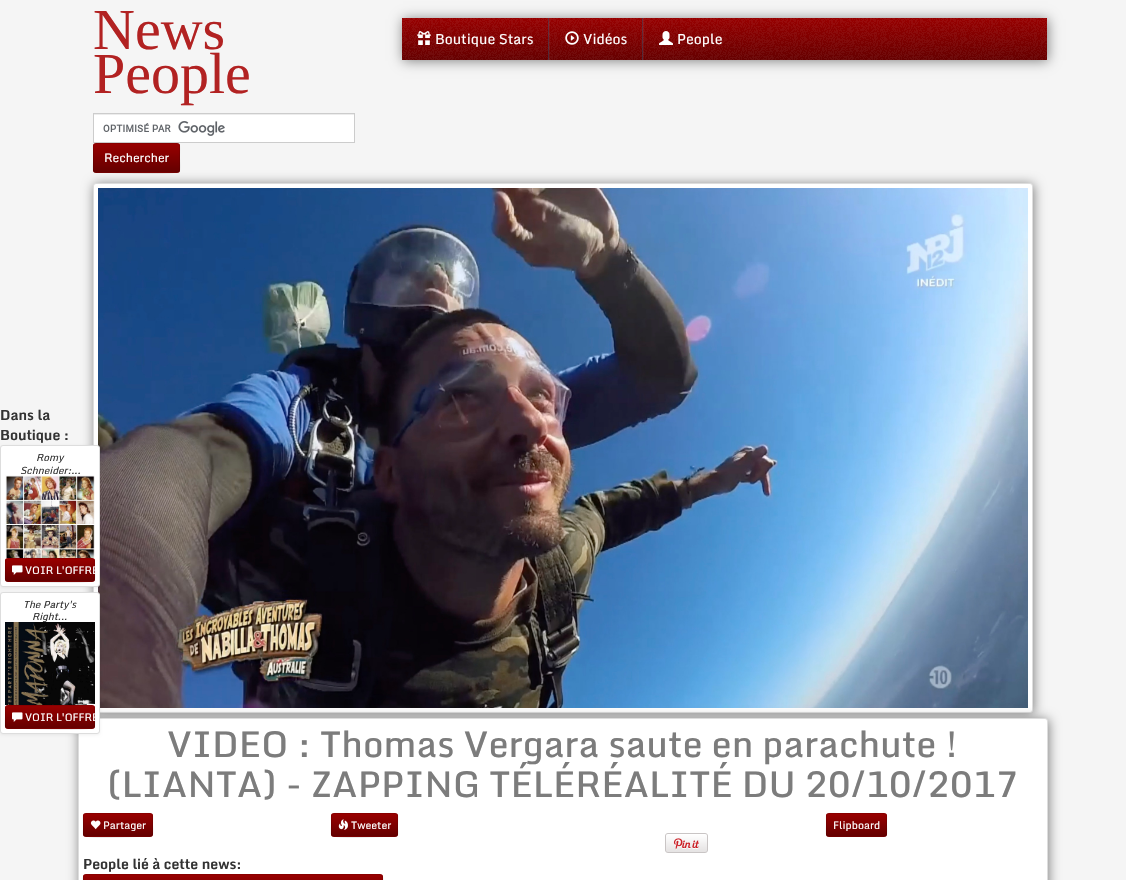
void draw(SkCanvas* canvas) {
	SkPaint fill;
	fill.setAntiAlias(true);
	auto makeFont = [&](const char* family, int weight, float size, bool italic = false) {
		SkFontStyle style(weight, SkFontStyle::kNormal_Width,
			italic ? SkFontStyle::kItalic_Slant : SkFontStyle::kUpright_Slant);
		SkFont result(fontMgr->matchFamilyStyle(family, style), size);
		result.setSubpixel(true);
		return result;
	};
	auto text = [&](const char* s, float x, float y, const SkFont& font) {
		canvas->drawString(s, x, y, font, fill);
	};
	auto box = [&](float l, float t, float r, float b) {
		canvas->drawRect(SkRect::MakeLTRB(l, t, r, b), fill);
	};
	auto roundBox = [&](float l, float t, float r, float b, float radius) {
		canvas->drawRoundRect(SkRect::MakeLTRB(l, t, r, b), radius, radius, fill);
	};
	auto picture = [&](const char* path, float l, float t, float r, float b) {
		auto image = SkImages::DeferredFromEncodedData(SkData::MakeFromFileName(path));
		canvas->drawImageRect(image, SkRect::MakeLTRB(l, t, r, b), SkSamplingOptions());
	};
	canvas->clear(0xFFF5F5F5);
	fill.setColor(0xFFFFFFFF);
	box(94, 115, 354, 142);
	picture("image0.png", 103, 121, 225, 136);
	fill.setColor(0xFFECECEC);
	box(94, 114, 354, 115);
	fill.setColor(0xFF980000);
	roundBox(93, 143, 180, 173, 3);
	canvas->save();
	canvas->clipPath(SkPathBuilder().moveTo(96, 143).lineTo(177, 143).cubicTo(178.5f, 143, 180, 144.5f, 180, 146).lineTo(180, 170).cubicTo(180, 171.5f, 178.5f, 173, 177, 173).lineTo(96, 173).cubicTo(94.5f, 173, 93, 171.5f, 93, 170).lineTo(93, 146).cubicTo(93, 144.5f, 94.5f, 143, 96, 143).close().detach(), true);
	{
		const SkColor colors[] = {0xFF980000, 0xFF650000};
		const float stops[] = {0, 1};
		const SkPoint ends[] = {{137, 144}, {137, 172}};
		fill.setShader(SkGradientShader::MakeLinear(ends, colors, stops, 2, SkTileMode::kClamp));
		fill.setAlpha(255);
	}
	box(93, 144, 180, 172);
	canvas->restore();
	fill.setStyle(SkPaint::kStroke_Style);
	fill.setStrokeWidth(1);
	fill.setShader(nullptr);
	fill.setColor(0x40000000);
	canvas->drawPath(SkPathBuilder().moveTo(179, 172).lineTo(178.5f, 172).cubicTo(176.5f, 173.5f, 117, 172.5f, 109.5f, 172.5f).lineTo(96, 172.5f).lineTo(94, 172).detach(), fill);
	fill.setColor(0x1A000000);
	canvas->drawPath(SkPathBuilder().moveTo(94, 172).cubicTo(92.5f, 170, 93.5f, 164, 93.5f, 162).lineTo(93.5f, 150).cubicTo(93.5f, 148, 92.5f, 143.5f, 96, 143.5f).lineTo(163.5f, 143.5f).cubicTo(182.5f, 143.5f, 179.5f, 140, 179.5f, 158).cubicTo(179.5f, 160.5f, 180.5f, 170, 179, 172).detach(), fill);
	fill.setColor(0xFFCCCCCC);
	canvas->drawRect(SkRect::MakeLTRB(93.5f, 113.5f, 354.5f, 142.5f), fill);
	fill.setStyle(SkPaint::kFill_Style);
	{
		const SkColor colors[] = {0xFF980000, 0xFF650000};
		const float stops[] = {0, 1};
		const SkPoint ends[] = {{725, 18}, {725, 60}};
		fill.setShader(SkGradientShader::MakeLinear(ends, colors, stops, 2, SkTileMode::kClamp));
		fill.setAlpha(255);
	}
	box(402, 18, 1047, 60);
	canvas->save();
	canvas->clipPath(SkPathBuilder(SkPathFillType::kEvenOdd).moveTo(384, 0).lineTo(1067, 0).lineTo(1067, 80).lineTo(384, 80).close().moveTo(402, 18).lineTo(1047, 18).lineTo(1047, 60).lineTo(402, 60).close().detach(), true);
	fill.setShader(nullptr);
	fill.setColor(0xFF808080);
	fill.setMaskFilter(SkMaskFilter::MakeBlur(kNormal_SkBlurStyle, 6));
	canvas->drawRect(SkRect::MakeLTRB(403, 19, 1048, 61), fill);
	fill.setMaskFilter(nullptr);
	canvas->restore();
	picture("image1.png", 402, 18, 1047, 60);
	fill.setColor(0x662A6082);
	box(548, 18, 549, 60);
	picture("image2.png", 417, 31, 431, 45);
	box(642, 18, 643, 60);
	fill.setColor(0x0FFFFFFF);
	box(549, 18, 550, 60);
	picture("image3.png", 565, 31, 579, 45);
	box(643, 18, 644, 60);
	picture("image4.png", 659, 31, 673, 45);
	fill.setColor(0xFF808080);
	fill.setMaskFilter(SkMaskFilter::MakeBlur(kNormal_SkBlurStyle, 6));
	canvas->drawRoundRect(SkRect::MakeLTRB(94, 184, 1034, 714), 3, 3, fill);
	fill.setMaskFilter(nullptr);
	fill.setColor(0xFFFFFFFF);
	canvas->drawRoundRect(SkRect::MakeLTRB(93.5f, 183.5f, 1032.5f, 712.5f), 2.5f, 2.5f, fill);
	fill.setStyle(SkPaint::kStroke_Style);
	fill.setColor(0xFFDDDDDD);
	canvas->drawRoundRect(SkRect::MakeLTRB(93.5f, 183.5f, 1032.5f, 712.5f), 2.5f, 2.5f, fill);
	picture("image8.png", 98, 188, 1028, 708);
	fill.setStyle(SkPaint::kFill_Style);
	fill.setColor(0x0F000000);
	fill.setMaskFilter(SkMaskFilter::MakeBlur(kNormal_SkBlurStyle, 1.5f));
	canvas->drawRoundRect(SkRect::MakeLTRB(0, 446, 100, 588), 3, 3, fill);
	fill.setMaskFilter(nullptr);
	fill.setColor(0xFFFFFFFF);
	canvas->drawRoundRect(SkRect::MakeLTRB(0.5f, 445.5f, 99.5f, 586.5f), 2.5f, 2.5f, fill);
	fill.setStyle(SkPaint::kStroke_Style);
	fill.setColor(0xFFDDDDDD);
	canvas->drawRoundRect(SkRect::MakeLTRB(0.5f, 445.5f, 99.5f, 586.5f), 2.5f, 2.5f, fill);
	fill.setStyle(SkPaint::kFill_Style);
	fill.setColor(0xFF980000);
	roundBox(5, 558, 95, 582, 3);
	canvas->save();
	canvas->clipPath(SkPathBuilder().moveTo(8, 558).lineTo(92, 558).cubicTo(93.5f, 558, 95, 559.5f, 95, 561).lineTo(95, 579).cubicTo(95, 580.5f, 93.5f, 582, 92, 582).lineTo(8, 582).cubicTo(6.5f, 582, 5, 580.5f, 5, 579).lineTo(5, 561).cubicTo(5, 559.5f, 6.5f, 558, 8, 558).close().detach(), true);
	{
		const SkColor colors[] = {0xFF980000, 0xFF650000};
		const float stops[] = {0, 1};
		const SkPoint ends[] = {{50, 559}, {50, 581}};
		fill.setShader(SkGradientShader::MakeLinear(ends, colors, stops, 2, SkTileMode::kClamp));
		fill.setAlpha(255);
	}
	box(5, 559, 95, 581);
	canvas->restore();
	fill.setStyle(SkPaint::kStroke_Style);
	fill.setShader(nullptr);
	fill.setColor(0x40000000);
	canvas->drawPath(SkPathBuilder().moveTo(94, 581).lineTo(93.5f, 581).cubicTo(91.5f, 582.5f, 29.5f, 581.5f, 22, 581.5f).lineTo(8, 581.5f).lineTo(6, 581).detach(), fill);
	fill.setColor(0x1A000000);
	canvas->drawPath(SkPathBuilder().moveTo(6, 581).cubicTo(4.5f, 579, 5.5f, 572, 5.5f, 570).cubicTo(5.5f, 555, 4, 558.5f, 22, 558.5f).lineTo(78, 558.5f).cubicTo(96, 558.5f, 94.5f, 555, 94.5f, 570).cubicTo(94.5f, 572, 95.5f, 579, 94, 581).detach(), fill);
	picture("image5.png", 5, 475, 95, 558);
	picture("image6.png", 12, 565, 23, 575);
	fill.setStyle(SkPaint::kFill_Style);
	fill.setColor(0xFF808080);
	fill.setMaskFilter(SkMaskFilter::MakeBlur(kNormal_SkBlurStyle, 6));
	canvas->drawRoundRect(SkRect::MakeLTRB(79, 719, 1049, 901), 3, 3, fill);
	fill.setMaskFilter(nullptr);
	fill.setColor(0xFFFFFFFF);
	canvas->drawRoundRect(SkRect::MakeLTRB(78.5f, 718.5f, 1047.5f, 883.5f), 2.5f, 2.5f, fill);
	fill.setStyle(SkPaint::kStroke_Style);
	fill.setColor(0xFFDDDDDD);
	canvas->drawRoundRect(SkRect::MakeLTRB(78.5f, 718.5f, 1047.5f, 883.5f), 2.5f, 2.5f, fill);
	fill.setStyle(SkPaint::kFill_Style);
	fill.setColor(0x0F000000);
	fill.setMaskFilter(SkMaskFilter::MakeBlur(kNormal_SkBlurStyle, 1.5f));
	canvas->drawRoundRect(SkRect::MakeLTRB(0, 593, 100, 735), 3, 3, fill);
	fill.setMaskFilter(nullptr);
	fill.setColor(0xFFFFFFFF);
	canvas->drawRoundRect(SkRect::MakeLTRB(0.5f, 592.5f, 99.5f, 733.5f), 2.5f, 2.5f, fill);
	fill.setStyle(SkPaint::kStroke_Style);
	fill.setColor(0xFFDDDDDD);
	canvas->drawRoundRect(SkRect::MakeLTRB(0.5f, 592.5f, 99.5f, 733.5f), 2.5f, 2.5f, fill);
	fill.setStyle(SkPaint::kFill_Style);
	fill.setColor(0xFF980000);
	roundBox(5, 705, 95, 729, 3);
	canvas->save();
	canvas->clipPath(SkPathBuilder().moveTo(8, 705).lineTo(92, 705).cubicTo(93.5f, 705, 95, 706.5f, 95, 708).lineTo(95, 726).cubicTo(95, 727.5f, 93.5f, 729, 92, 729).lineTo(8, 729).cubicTo(6.5f, 729, 5, 727.5f, 5, 726).lineTo(5, 708).cubicTo(5, 706.5f, 6.5f, 705, 8, 705).close().detach(), true);
	{
		const SkColor colors[] = {0xFF980000, 0xFF650000};
		const float stops[] = {0, 1};
		const SkPoint ends[] = {{50, 706}, {50, 728}};
		fill.setShader(SkGradientShader::MakeLinear(ends, colors, stops, 2, SkTileMode::kClamp));
		fill.setAlpha(255);
	}
	box(5, 706, 95, 728);
	canvas->restore();
	fill.setStyle(SkPaint::kStroke_Style);
	fill.setShader(nullptr);
	fill.setColor(0x40000000);
	canvas->drawPath(SkPathBuilder().moveTo(94, 728).lineTo(93.5f, 728).cubicTo(91.5f, 729.5f, 29.5f, 728.5f, 22, 728.5f).lineTo(8, 728.5f).lineTo(6, 728).detach(), fill);
	fill.setColor(0x1A000000);
	canvas->drawPath(SkPathBuilder().moveTo(6, 728).cubicTo(4.5f, 726, 5.5f, 719, 5.5f, 717).cubicTo(5.5f, 702, 4, 705.5f, 22, 705.5f).lineTo(78, 705.5f).cubicTo(96, 705.5f, 94.5f, 702, 94.5f, 717).cubicTo(94.5f, 719, 95.5f, 726, 94, 728).detach(), fill);
	picture("image7.png", 5, 622, 95, 705);
	picture("image6.png", 12, 712, 23, 722);
	fill.setStyle(SkPaint::kFill_Style);
	fill.setColor(0xFF980000);
	roundBox(83, 813, 153, 837, 3);
	canvas->save();
	canvas->clipPath(SkPathBuilder().moveTo(86, 813).lineTo(150, 813).cubicTo(151.5f, 813, 153, 814.5f, 153, 816).lineTo(153, 834).cubicTo(153, 835.5f, 151.5f, 837, 150, 837).lineTo(86, 837).cubicTo(84.5f, 837, 83, 835.5f, 83, 834).lineTo(83, 816).cubicTo(83, 814.5f, 84.5f, 813, 86, 813).close().detach(), true);
	{
		const SkColor colors[] = {0xFF980000, 0xFF650000};
		const float stops[] = {0, 1};
		const SkPoint ends[] = {{118, 814}, {118, 836}};
		fill.setShader(SkGradientShader::MakeLinear(ends, colors, stops, 2, SkTileMode::kClamp));
		fill.setAlpha(255);
	}
	box(83, 814, 153, 836);
	canvas->restore();
	fill.setStyle(SkPaint::kStroke_Style);
	fill.setShader(nullptr);
	fill.setColor(0x40000000);
	canvas->drawPath(SkPathBuilder().moveTo(152, 836).lineTo(150, 836.5f).lineTo(139.5f, 836.5f).cubicTo(133, 836.5f, 86.5f, 837.5f, 84.5f, 836).lineTo(84, 836).detach(), fill);
	fill.setColor(0x1A000000);
	canvas->drawPath(SkPathBuilder().moveTo(84, 836).cubicTo(82.5f, 834, 83.5f, 830, 83.5f, 828).cubicTo(83.5f, 811.5f, 80, 813.5f, 96.5f, 813.5f).lineTo(139.5f, 813.5f).cubicTo(154.5f, 813.5f, 152.5f, 811, 152.5f, 825).cubicTo(152.5f, 827, 153.5f, 834, 152, 836).detach(), fill);
	picture("image9.png", 90, 820, 101, 830);
	fill.setStyle(SkPaint::kFill_Style);
	fill.setColor(0xFF980000);
	roundBox(331, 813, 398, 837, 3);
	canvas->save();
	canvas->clipPath(SkPathBuilder().moveTo(334, 813).lineTo(395, 813).cubicTo(396.5f, 813, 398, 814.5f, 398, 816).lineTo(398, 834).cubicTo(398, 835.5f, 396.5f, 837, 395, 837).lineTo(334, 837).cubicTo(332.5f, 837, 331, 835.5f, 331, 834).lineTo(331, 816).cubicTo(331, 814.5f, 332.5f, 813, 334, 813).close().detach(), true);
	{
		const SkColor colors[] = {0xFF980000, 0xFF650000};
		const float stops[] = {0, 1};
		const SkPoint ends[] = {{365, 814}, {365, 836}};
		fill.setShader(SkGradientShader::MakeLinear(ends, colors, stops, 2, SkTileMode::kClamp));
		fill.setAlpha(255);
	}
	box(331, 814, 398, 836);
	canvas->restore();
	fill.setStyle(SkPaint::kStroke_Style);
	fill.setShader(nullptr);
	fill.setColor(0x40000000);
	canvas->drawPath(SkPathBuilder().moveTo(397, 836).lineTo(395, 836.5f).lineTo(385, 836.5f).cubicTo(379, 836.5f, 334.5f, 837.5f, 332.5f, 836).lineTo(332, 836).detach(), fill);
	fill.setColor(0x1A000000);
	canvas->drawPath(SkPathBuilder().moveTo(332, 836).cubicTo(330.5f, 834, 331.5f, 827, 331.5f, 825).cubicTo(331.5f, 811.5f, 329.5f, 813.5f, 344, 813.5f).lineTo(385, 813.5f).cubicTo(401, 813.5f, 397.5f, 811.5f, 397.5f, 828).cubicTo(397.5f, 830, 398.5f, 834, 397, 836).detach(), fill);
	picture("image10.png", 338, 819, 348, 830);
	fill.setStyle(SkPaint::kFill_Style);
	fill.setColor(0xFF980000);
	roundBox(826, 813, 887, 837, 3);
	canvas->save();
	canvas->clipPath(SkPathBuilder().moveTo(829, 813).lineTo(884, 813).cubicTo(885.5f, 813, 887, 814.5f, 887, 816).lineTo(887, 834).cubicTo(887, 835.5f, 885.5f, 837, 884, 837).lineTo(829, 837).cubicTo(827.5f, 837, 826, 835.5f, 826, 834).lineTo(826, 816).cubicTo(826, 814.5f, 827.5f, 813, 829, 813).close().detach(), true);
	{
		const SkColor colors[] = {0xFF980000, 0xFF650000};
		const float stops[] = {0, 1};
		const SkPoint ends[] = {{857, 814}, {857, 836}};
		fill.setShader(SkGradientShader::MakeLinear(ends, colors, stops, 2, SkTileMode::kClamp));
		fill.setAlpha(255);
	}
	box(826, 814, 887, 836);
	canvas->restore();
	fill.setStyle(SkPaint::kStroke_Style);
	fill.setShader(nullptr);
	fill.setColor(0x40000000);
	canvas->drawPath(SkPathBuilder().moveTo(886, 836).lineTo(884, 836.5f).lineTo(829, 836.5f).lineTo(827, 836).detach(), fill);
	fill.setColor(0x1A000000);
	canvas->drawPath(SkPathBuilder().moveTo(827, 836).cubicTo(825.5f, 834, 826.5f, 827, 826.5f, 825).cubicTo(826.5f, 811.5f, 824.5f, 813.5f, 838, 813.5f).lineTo(875, 813.5f).cubicTo(888.5f, 813.5f, 886.5f, 811.5f, 886.5f, 825).cubicTo(886.5f, 827, 887.5f, 834, 886, 836).detach(), fill);
	picture("image11.png", 665, 833, 708, 853);
	fill.setStyle(SkPaint::kFill_Style);
	fill.setColor(0xFF980000);
	roundBox(83, 874, 383, 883, 3);
	canvas->save();
	canvas->clipPath(SkPathBuilder().moveTo(86, 874).lineTo(380, 874).cubicTo(381.5f, 874, 383, 875.5f, 383, 877).lineTo(383, 895).cubicTo(383, 896.5f, 381.5f, 898, 380, 898).lineTo(86, 898).cubicTo(84.5f, 898, 83, 896.5f, 83, 895).lineTo(83, 877).cubicTo(83, 875.5f, 84.5f, 874, 86, 874).close().detach(), true);
	{
		const SkColor colors[] = {0xFF980000, 0xFF650000};
		const float stops[] = {0, 1};
		const SkPoint ends[] = {{233, 875}, {233, 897}};
		fill.setShader(SkGradientShader::MakeLinear(ends, colors, stops, 2, SkTileMode::kClamp));
		fill.setAlpha(255);
	}
	box(83, 875, 383, 880);
	canvas->restore();
	fill.setStyle(SkPaint::kStroke_Style);
	fill.setShader(nullptr);
	fill.setColor(0x1A000000);
	canvas->drawPath(SkPathBuilder().moveTo(84, 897).cubicTo(82.5f, 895, 83.5f, 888, 83.5f, 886).cubicTo(83.5f, 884, 82, 876, 85, 874.5f).lineTo(381, 874.5f).cubicTo(384, 876, 382.5f, 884, 382.5f, 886).cubicTo(382.5f, 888, 383.5f, 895, 382, 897).detach(), fill);
	auto font1 = makeFont("Liberation Serif", 400, 58);
	fill.setStyle(SkPaint::kFill_Style);
	fill.setColor(0xFFB22222);
	text("News", 93, 49, font1);
	text("People", 93, 93, font1);
	auto font2 = makeFont("Monda", 400, 12);
	fill.setColor(0xFFFFFFFF);
	text("Rechercher", 104, 162, font2);
	auto font3 = makeFont("Monda", 400, 14);
	text("Boutique Stars", 435, 44, font3);
	text("Vidéos", 583, 44, font3);
	text("People", 677, 44, font3);
	auto font4 = makeFont("Monda", 700, 14);
	fill.setColor(0xFF333333);
	text("Dans la", 0, 420, font4);
	text("Boutique :", 0, 440, font4);
	auto font5 = makeFont("Monda", 400, 10, true);
	text("Romy", 36, 461, font5);
	text("Schneider:...", 20, 474, font5);
	auto font6 = makeFont("Monda", 400, 10.5f);
	fill.setColor(0xFFFFFFFF);
	text("VOIR L'OFFRE", 25, 574, font6);
	fill.setColor(0xFF333333);
	text("The Party's", 23, 608, font5);
	text("Right...", 32, 620, font5);
	fill.setColor(0xFFFFFFFF);
	text("VOIR L'OFFRE", 25, 721, font6);
	auto font7 = makeFont("Monda", 500, 36);
	fill.setColor(0xFF7C7C7C);
	text("VIDEO : Thomas Vergara saute en parachute !", 167, 757, font7);
	text("(LIANTA) - ZAPPING TÉLÉRÉALITÉ DU 20/10/2017", 107, 797, font7);
	fill.setColor(0xFFFFFFFF);
	text("Partager", 103, 829, font6);
	text("Tweeter", 351, 829, font6);
	text("Flipboard", 833, 829, font6);
	fill.setColor(0xFF333333);
	text("People lié à cette news:", 83, 869, font4);
}
